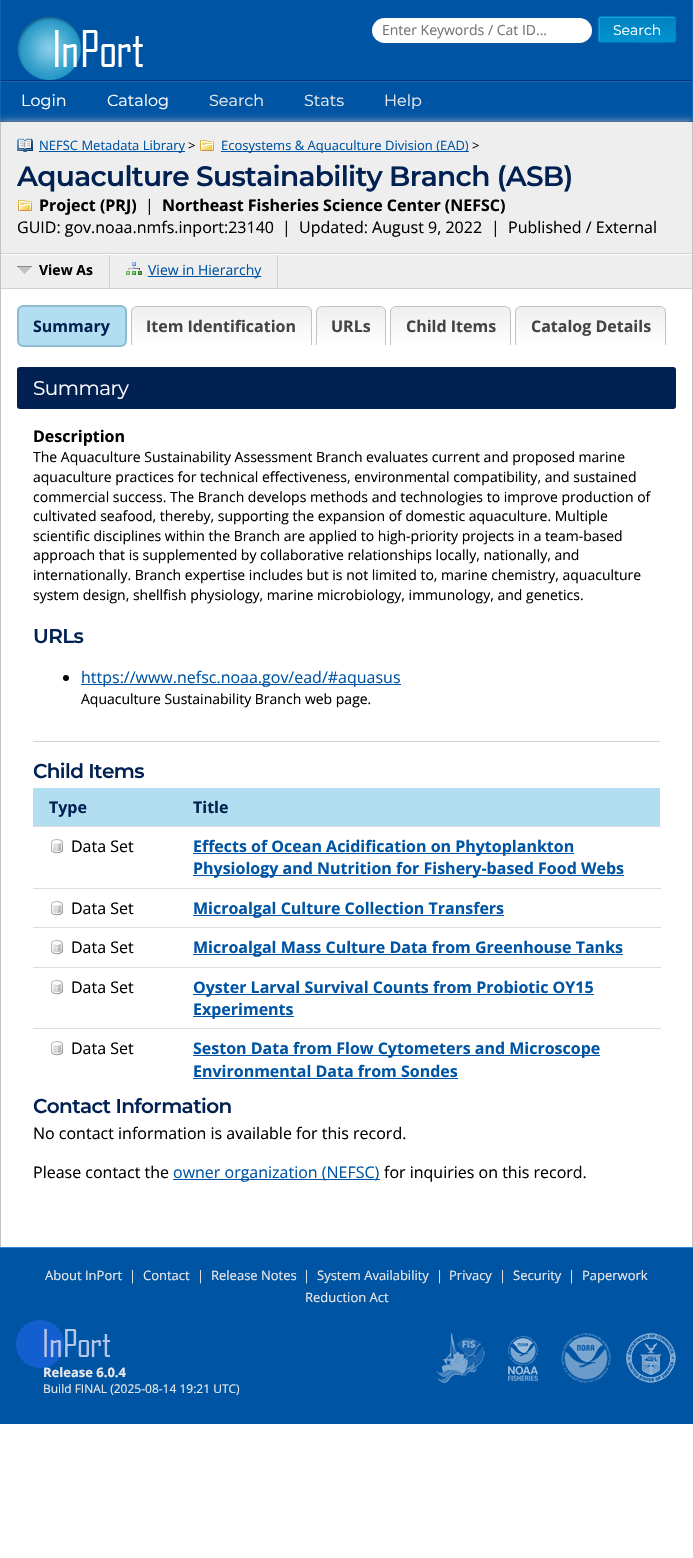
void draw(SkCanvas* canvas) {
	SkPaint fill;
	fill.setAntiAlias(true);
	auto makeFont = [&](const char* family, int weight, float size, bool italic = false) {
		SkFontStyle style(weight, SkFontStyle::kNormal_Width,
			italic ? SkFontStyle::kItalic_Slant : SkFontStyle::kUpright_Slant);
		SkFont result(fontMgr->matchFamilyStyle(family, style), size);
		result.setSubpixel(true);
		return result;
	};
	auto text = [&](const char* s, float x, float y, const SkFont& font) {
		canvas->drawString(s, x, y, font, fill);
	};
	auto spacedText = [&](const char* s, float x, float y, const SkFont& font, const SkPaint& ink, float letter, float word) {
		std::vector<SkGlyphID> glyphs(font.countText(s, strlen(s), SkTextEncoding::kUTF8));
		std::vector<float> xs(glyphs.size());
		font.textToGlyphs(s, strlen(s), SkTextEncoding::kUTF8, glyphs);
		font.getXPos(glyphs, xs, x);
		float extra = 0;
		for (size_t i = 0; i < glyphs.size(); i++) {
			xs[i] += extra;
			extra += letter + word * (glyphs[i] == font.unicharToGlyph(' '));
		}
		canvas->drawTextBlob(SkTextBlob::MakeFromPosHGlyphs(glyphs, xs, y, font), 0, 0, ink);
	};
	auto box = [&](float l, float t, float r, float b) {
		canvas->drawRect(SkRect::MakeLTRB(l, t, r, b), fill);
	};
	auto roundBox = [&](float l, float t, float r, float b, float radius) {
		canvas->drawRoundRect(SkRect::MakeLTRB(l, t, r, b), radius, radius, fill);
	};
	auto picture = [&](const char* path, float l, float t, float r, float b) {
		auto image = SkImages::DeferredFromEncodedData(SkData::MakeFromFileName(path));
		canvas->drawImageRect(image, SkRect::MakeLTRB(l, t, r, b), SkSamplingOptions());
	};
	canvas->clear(0xFFFFFFFF);
	fill.setColor(0xFF0054A4);
	box(1, 0, 692, 80);
	fill.setColor(0xFF1165B5);
	box(692, 0, 693, 122);
	box(0, 0, 1, 80);
	picture("image0.png", 17, 16, 143, 80);
	fill.setColor(0xFFFFFFFF);
	roundBox(372, 18, 592, 43, 12.5f);
	canvas->save();
	canvas->clipPath(SkPathBuilder().moveTo(601, 16).lineTo(673, 16).cubicTo(674.5f, 16, 676, 17.5f, 676, 19).lineTo(676, 40).cubicTo(676, 41.5f, 674.5f, 43, 673, 43).lineTo(601, 43).cubicTo(599.5f, 43, 598, 41.5f, 598, 40).lineTo(598, 19).cubicTo(598, 17.5f, 599.5f, 16, 601, 16).close().detach(), true);
	{
		const SkColor colors[] = {0xFF0093D0, 0xFF0082BF};
		const float stops[] = {0, 1};
		const SkPoint ends[] = {{637, 42}, {637, 17}};
		fill.setShader(SkGradientShader::MakeLinear(ends, colors, stops, 2, SkTileMode::kClamp));
		fill.setAlpha(255);
	}
	box(598, 17, 676, 42);
	{
		const SkColor colors[] = {0xFF0093D0, 0xFF0082BF};
		const float stops[] = {0, 1};
		const SkPoint ends[] = {{637, 67}, {637, 42}};
		fill.setShader(SkGradientShader::MakeLinear(ends, colors, stops, 2, SkTileMode::kClamp));
		fill.setAlpha(255);
	}
	box(598, 42, 676, 43);
	canvas->restore();
	fill.setShader(nullptr);
	fill.setColor(0xFF11A4E1);
	canvas->drawPath(SkPathBuilder().moveTo(602, 18).lineTo(675, 18).lineTo(673, 17).lineTo(613, 17).cubicTo(598, 17, 599, 14, 599, 26).cubicTo(599, 29, 598, 41, 600, 42).lineTo(600, 24).cubicTo(600, 22, 599, 18, 602, 18).close().detach(), fill);
	fill.setStyle(SkPaint::kStroke_Style);
	fill.setStrokeWidth(1);
	fill.setColor(0xFF0071AE);
	canvas->drawPath(SkPathBuilder().moveTo(675, 42).lineTo(674.5f, 42).cubicTo(672.5f, 43.5f, 620, 42.5f, 613, 42.5f).lineTo(601, 42.5f).lineTo(599, 42).detach(), fill);
	fill.setColor(0xFF0082BF);
	canvas->drawPath(SkPathBuilder().moveTo(599, 42).cubicTo(597.5f, 40, 598.5f, 35, 598.5f, 33).cubicTo(598.5f, 14, 594.5f, 16.5f, 613, 16.5f).lineTo(661, 16.5f).cubicTo(678, 16.5f, 675.5f, 13.5f, 675.5f, 29.5f).cubicTo(675.5f, 32, 676.5f, 40, 675, 42).detach(), fill);
	fill.setStyle(SkPaint::kFill_Style);
	fill.setColor(0xFF0054A4);
	box(1, 82, 692, 121);
	fill.setColor(0xFF003282);
	box(0, 121, 693, 122);
	fill.setColor(0xFF1165B5);
	box(0, 80, 1, 122);
	fill.setColor(0xFF1A65AD);
	box(1, 81, 692, 82);
	fill.setColor(0xFF003282);
	box(1, 80, 692, 81);
	fill.setColor(0xFFBBBBBB);
	fill.setMaskFilter(SkMaskFilter::MakeBlur(kNormal_SkBlurStyle, 4));
	canvas->drawRect(SkRect::MakeLTRB(0, 122, 693, 1247), fill);
	fill.setMaskFilter(nullptr);
	fill.setColor(0xFFFFFFFF);
	box(1, 289, 692, 1247);
	fill.setColor(0xFFC3C3C3);
	box(692, 122, 693, 1247);
	box(0, 122, 1, 1247);
	fill.setColor(0xFFEEEEEE);
	box(1, 122, 692, 253);
	fill.setColor(0xFFD2D2D2);
	box(1, 253, 692, 254);
	picture("image1.png", 17, 138, 33, 152);
	fill.setColor(0xFF0054A4);
	box(39, 151, 185, 152);
	picture("image2.png", 200, 140, 214, 151);
	box(221, 151, 469, 152);
	picture("image2.png", 18, 200, 32, 211);
	fill.setColor(0xFFEEEEEE);
	box(1, 255, 692, 288);
	fill.setColor(0xFFFFFFFF);
	box(1, 254, 692, 255);
	fill.setColor(0xFFD2D2D2);
	box(1, 288, 692, 289);
	box(109, 255, 110, 288);
	picture("image3.png", 17, 266, 32, 274);
	box(277, 255, 278, 288);
	picture("image4.png", 126, 262, 262, 277);
	fill.setColor(0xFF0054A4);
	box(255, 276, 261, 277);
	fill.setColor(0xFFB2DEF1);
	canvas->drawRoundRect(SkRect::MakeLTRB(18, 306, 126, 346), 5, 5, fill);
	fill.setStyle(SkPaint::kStroke_Style);
	fill.setStrokeWidth(2);
	fill.setColor(0xFF90BCCF);
	canvas->drawRoundRect(SkRect::MakeLTRB(18, 306, 126, 346), 5, 5, fill);
	canvas->save();
	canvas->clipPath(SkPathBuilder().moveTo(137, 306).lineTo(306, 306).cubicTo(309.5f, 306, 312, 308.5f, 312, 312).lineTo(312, 345).lineTo(131, 345).lineTo(131, 312).cubicTo(131, 308.5f, 133.5f, 306, 137, 306).close().detach(), true);
	fill.setStyle(SkPaint::kFill_Style);
	{
		const SkColor colors[] = {0xFFEEEEEE, 0xFFFFFFFF};
		const float stops[] = {0, 1};
		const SkPoint ends[] = {{222, 307}, {222, 345}};
		fill.setShader(SkGradientShader::MakeLinear(ends, colors, stops, 2, SkTileMode::kClamp));
		fill.setAlpha(255);
	}
	box(131, 307, 312, 345);
	canvas->restore();
	fill.setShader(nullptr);
	fill.setColor(0xFFC3C3C3);
	canvas->drawPath(SkPathBuilder(SkPathFillType::kEvenOdd).moveTo(137, 306).lineTo(306, 306).cubicTo(309, 306, 312, 309, 312, 312).lineTo(312, 345).lineTo(131, 345).lineTo(131, 312).cubicTo(131, 309, 134, 306, 137, 306).close().moveTo(137, 307).lineTo(306, 307).cubicTo(309, 307, 311, 309, 311, 312).lineTo(311, 345).lineTo(132, 345).lineTo(132, 312).cubicTo(132, 309, 134, 307, 137, 307).close().detach(), fill);
	canvas->save();
	canvas->clipPath(SkPathBuilder().moveTo(322, 306).lineTo(380, 306).cubicTo(383.5f, 306, 386, 308.5f, 386, 312).lineTo(386, 345).lineTo(316, 345).lineTo(316, 312).cubicTo(316, 308.5f, 318.5f, 306, 322, 306).close().detach(), true);
	{
		const SkColor colors[] = {0xFFEEEEEE, 0xFFFFFFFF};
		const float stops[] = {0, 1};
		const SkPoint ends[] = {{351, 307}, {351, 345}};
		fill.setShader(SkGradientShader::MakeLinear(ends, colors, stops, 2, SkTileMode::kClamp));
		fill.setAlpha(255);
	}
	box(316, 307, 386, 345);
	canvas->restore();
	fill.setShader(nullptr);
	fill.setColor(0xFFC3C3C3);
	canvas->drawPath(SkPathBuilder(SkPathFillType::kEvenOdd).moveTo(322, 306).lineTo(380, 306).cubicTo(383, 306, 386, 309, 386, 312).lineTo(386, 345).lineTo(316, 345).lineTo(316, 312).cubicTo(316, 309, 319, 306, 322, 306).close().moveTo(322, 307).lineTo(380, 307).cubicTo(383, 307, 385, 309, 385, 312).lineTo(385, 345).lineTo(317, 345).lineTo(317, 312).cubicTo(317, 309, 319, 307, 322, 307).close().detach(), fill);
	canvas->save();
	canvas->clipPath(SkPathBuilder().moveTo(396, 306).lineTo(505, 306).cubicTo(508.5f, 306, 511, 308.5f, 511, 312).lineTo(511, 345).lineTo(390, 345).lineTo(390, 312).cubicTo(390, 308.5f, 392.5f, 306, 396, 306).close().detach(), true);
	{
		const SkColor colors[] = {0xFFEEEEEE, 0xFFFFFFFF};
		const float stops[] = {0, 1};
		const SkPoint ends[] = {{451, 307}, {451, 345}};
		fill.setShader(SkGradientShader::MakeLinear(ends, colors, stops, 2, SkTileMode::kClamp));
		fill.setAlpha(255);
	}
	box(390, 307, 511, 345);
	canvas->restore();
	fill.setShader(nullptr);
	fill.setColor(0xFFC3C3C3);
	canvas->drawPath(SkPathBuilder(SkPathFillType::kEvenOdd).moveTo(396, 306).lineTo(505, 306).cubicTo(508, 306, 511, 309, 511, 312).lineTo(511, 345).lineTo(390, 345).lineTo(390, 312).cubicTo(390, 309, 393, 306, 396, 306).close().moveTo(396, 307).lineTo(505, 307).cubicTo(508, 307, 510, 309, 510, 312).lineTo(510, 345).lineTo(391, 345).lineTo(391, 312).cubicTo(391, 309, 393, 307, 396, 307).close().detach(), fill);
	canvas->save();
	canvas->clipPath(SkPathBuilder().moveTo(521, 306).lineTo(660, 306).cubicTo(663.5f, 306, 666, 308.5f, 666, 312).lineTo(666, 345).lineTo(515, 345).lineTo(515, 312).cubicTo(515, 308.5f, 517.5f, 306, 521, 306).close().detach(), true);
	{
		const SkColor colors[] = {0xFFEEEEEE, 0xFFFFFFFF};
		const float stops[] = {0, 1};
		const SkPoint ends[] = {{591, 307}, {591, 345}};
		fill.setShader(SkGradientShader::MakeLinear(ends, colors, stops, 2, SkTileMode::kClamp));
		fill.setAlpha(255);
	}
	box(515, 307, 666, 345);
	canvas->restore();
	fill.setShader(nullptr);
	fill.setColor(0xFFC3C3C3);
	canvas->drawPath(SkPathBuilder(SkPathFillType::kEvenOdd).moveTo(521, 306).lineTo(660, 306).cubicTo(663, 306, 666, 309, 666, 312).lineTo(666, 345).lineTo(515, 345).lineTo(515, 312).cubicTo(515, 309, 518, 306, 521, 306).close().moveTo(521, 307).lineTo(660, 307).cubicTo(663, 307, 665, 309, 665, 312).lineTo(665, 345).lineTo(516, 345).lineTo(516, 312).cubicTo(516, 309, 518, 307, 521, 307).close().detach(), fill);
	fill.setColor(0xFF002151);
	roundBox(17, 367, 676, 409, 3);
	fill.setColor(0xFFD2D2D2);
	box(33, 741, 660, 742);
	fill.setColor(0xFF000000);
	canvas->drawCircle(66, 678, 3, fill);
	fill.setColor(0xFF0054A4);
	box(81, 684, 401, 685);
	fill.setColor(0xFFB2DEF1);
	box(33, 788, 660, 826);
	fill.setColor(0xFFDDDDDD);
	box(33, 826, 661, 827);
	picture("image5.png", 51, 839, 63, 854);
	box(33, 888, 661, 889);
	fill.setColor(0xFF0054A4);
	box(193, 853, 574, 854);
	box(193, 875, 624, 876);
	picture("image5.png", 51, 901, 63, 916);
	fill.setColor(0xFFDDDDDD);
	box(33, 927, 661, 928);
	fill.setColor(0xFF0054A4);
	box(193, 915, 504, 916);
	picture("image5.png", 51, 940, 63, 955);
	fill.setColor(0xFFDDDDDD);
	box(33, 967, 661, 968);
	fill.setColor(0xFF0054A4);
	box(193, 954, 623, 955);
	picture("image5.png", 51, 980, 63, 995);
	fill.setColor(0xFFDDDDDD);
	box(33, 1028, 661, 1029);
	fill.setColor(0xFF0054A4);
	box(193, 994, 594, 995);
	box(193, 1016, 294, 1017);
	picture("image5.png", 51, 1041, 63, 1056);
	box(193, 1055, 600, 1056);
	box(193, 1078, 458, 1079);
	box(173, 1179, 380, 1180);
	box(0, 1248, 693, 1424);
	fill.setColor(0xFF3387D7);
	box(0, 1247, 693, 1248);
	picture("image6.png", 16, 1320, 110, 1368);
	picture("image7.png", 436, 1333, 485, 1383);
	picture("image8.png", 508, 1336, 538, 1381);
	picture("image9.png", 561, 1333, 611, 1383);
	picture("image10.png", 626, 1333, 676, 1383);
	auto font1 = makeFont("Open Sans", 400, 14);
	fill.setColor(0xFF757575);
	text("Enter Keywords / Cat ID...", 382, 35, font1);
	auto font2 = makeFont("Montserrat", 400, 14);
	fill.setColor(0xFFFFFFFF);
	text("Search", 613, 35, font2);
	auto font3 = makeFont("Montserrat", 400, 16);
	text("Login", 21, 106, font3);
	text("Catalog", 107, 106, font3);
	fill.setColor(0xFFE9E9E9);
	text("Search", 209, 106, font3);
	text("Stats", 304, 106, font3);
	text("Help", 384, 106, font3);
	auto font4 = makeFont("Open Sans", 400, 13);
	fill.setColor(0xFF0054A4);
	text("NEFSC Metadata Library", 39, 150, font4);
	fill.setColor(0xFF000000);
	text(">", 188, 150, font4);
	fill.setColor(0xFF0054A4);
	text("Ecosystems & Aquaculture Division (EAD)", 221, 150, font4);
	fill.setColor(0xFF000000);
	text(">", 472, 150, font4);
	auto font5 = makeFont("Montserrat", 600, 28);
	fill.setColor(0xFF002151);
	spacedText("Aquaculture Sustainability Branch (ASB)", 17, 186, font5, fill, -0.7f, 0);
	auto font6 = makeFont("Open Sans", 700, 16);
	fill.setColor(0xFF000000);
	text("Project (PRJ)", 39, 211, font6);
	auto font7 = makeFont("Open Sans", 400, 16);
	text("|", 145, 211, font7);
	text("Northeast Fisheries Science Center (NEFSC)", 162, 211, font6);
	text("GUID: gov.noaa.nmfs.inport:23140", 17, 233, font7);
	text("|  Updated: August 9, 2022", 282, 233, font7);
	text("|  Published / External", 491, 233, font7);
	auto font8 = makeFont("Open Sans", 700, 14);
	text("View As", 39, 275, font8);
	fill.setColor(0xFF0054A4);
	text("View in Hierarchy", 148, 275, font1);
	fill.setColor(0xFF002151);
	text("Summary", 33, 332, font6);
	fill.setColor(0xFF444444);
	text("Item Identification", 146, 332, font6);
	text("URLs", 331, 332, font6);
	text("Child Items", 406, 332, font6);
	text("Catalog Details", 531, 332, font6);
	auto font9 = makeFont("Montserrat", 400, 20);
	fill.setColor(0xFFFFFFFF);
	spacedText("Summary", 33, 395, font9, fill, -0.5f, 0);
	fill.setColor(0xFF000000);
	text("Description", 33, 442, font6);
	text("The Aquaculture Sustainability Assessment Branch evaluates current and proposed marine", 33, 462, font1);
	text("aquaculture practices for technical effectiveness, environmental compatibility, and sustained", 33, 482, font1);
	text("commercial success. The Branch develops methods and technologies to improve production of", 33, 502, font1);
	text("cultivated seafood, thereby, supporting the expansion of domestic aquaculture. Multiple", 33, 521, font1);
	text("scientific disciplines within the Branch are applied to high-priority projects in a team-based", 33, 541, font1);
	text("approach that is supplemented by collaborative relationships locally, nationally, and", 33, 560, font1);
	text("internationally. Branch expertise includes but is not limited to, marine chemistry, aquaculture", 33, 580, font1);
	text("system design, shellfish physiology, marine microbiology, immunology, and genetics.", 33, 600, font1);
	auto font10 = makeFont("Montserrat", 600, 20);
	fill.setColor(0xFF002151);
	spacedText("URLs", 33, 643, font10, fill, -0.6f, 0);
	fill.setColor(0xFF0054A4);
	text("https://www.nefsc.noaa.gov/ead/#aquasus", 81, 683, font7);
	fill.setColor(0xFF000000);
	text("Aquaculture Sustainability Branch web page.", 81, 704, font1);
	fill.setColor(0xFF002151);
	spacedText("Child Items", 33, 778, font10, fill, -0.6f, 0);
	text("Type", 49, 813, font6);
	text("Title", 193, 813, font6);
	fill.setColor(0xFF000000);
	text("Data Set", 71, 852, font7);
	fill.setColor(0xFF0054A4);
	text("Effects of Ocean Acidification on Phytoplankton", 193, 852, font6);
	text("Physiology and Nutrition for Fishery-based Food Webs", 193, 874, font6);
	fill.setColor(0xFF000000);
	text("Data Set", 71, 914, font7);
	fill.setColor(0xFF0054A4);
	text("Microalgal Culture Collection Transfers", 193, 914, font6);
	fill.setColor(0xFF000000);
	text("Data Set", 71, 953, font7);
	fill.setColor(0xFF0054A4);
	text("Microalgal Mass Culture Data from Greenhouse Tanks", 193, 953, font6);
	fill.setColor(0xFF000000);
	text("Data Set", 71, 993, font7);
	fill.setColor(0xFF0054A4);
	text("Oyster Larval Survival Counts from Probiotic OY15", 193, 993, font6);
	text("Experiments", 193, 1015, font6);
	fill.setColor(0xFF000000);
	text("Data Set", 71, 1054, font7);
	fill.setColor(0xFF0054A4);
	text("Seston Data from Flow Cytometers and Microscope", 193, 1054, font6);
	text("Environmental Data from Sondes", 193, 1077, font6);
	fill.setColor(0xFF002151);
	spacedText("Contact Information", 33, 1113, font10, fill, -0.6f, 0);
	fill.setColor(0xFF000000);
	text("No contact information is available for this record.", 33, 1139, font7);
	text("Please contact the", 33, 1178, font7);
	fill.setColor(0xFF0054A4);
	text("owner organization (NEFSC)", 173, 1178, font7);
	fill.setColor(0xFF000000);
	text("for inquiries on this record.", 384, 1178, font7);
	fill.setColor(0xFFE9E9E9);
	text("About InPort", 45, 1280, font4);
	text("|", 129, 1280, font4);
	text("Contact", 143, 1280, font4);
	text("|", 197, 1280, font4);
	text("Release Notes", 211, 1280, font4);
	text("|", 303, 1280, font4);
	text("System Availability", 317, 1280, font4);
	text("|", 436, 1280, font4);
	text("Privacy", 449, 1280, font4);
	text("|", 499, 1280, font4);
	text("Security", 513, 1280, font4);
	text("|", 568, 1280, font4);
	text("Paperwork", 582, 1280, font4);
	text("Reduction Act", 305, 1302, font4);
	auto font11 = makeFont("Open Sans", 700, 13);
	text("Release 6.0.4", 43, 1377, font11);
	auto font12 = makeFont("Open Sans", 400, 12);
	text("Build FINAL (2025-08-14 19:21 UTC)", 43, 1393, font12);
}
